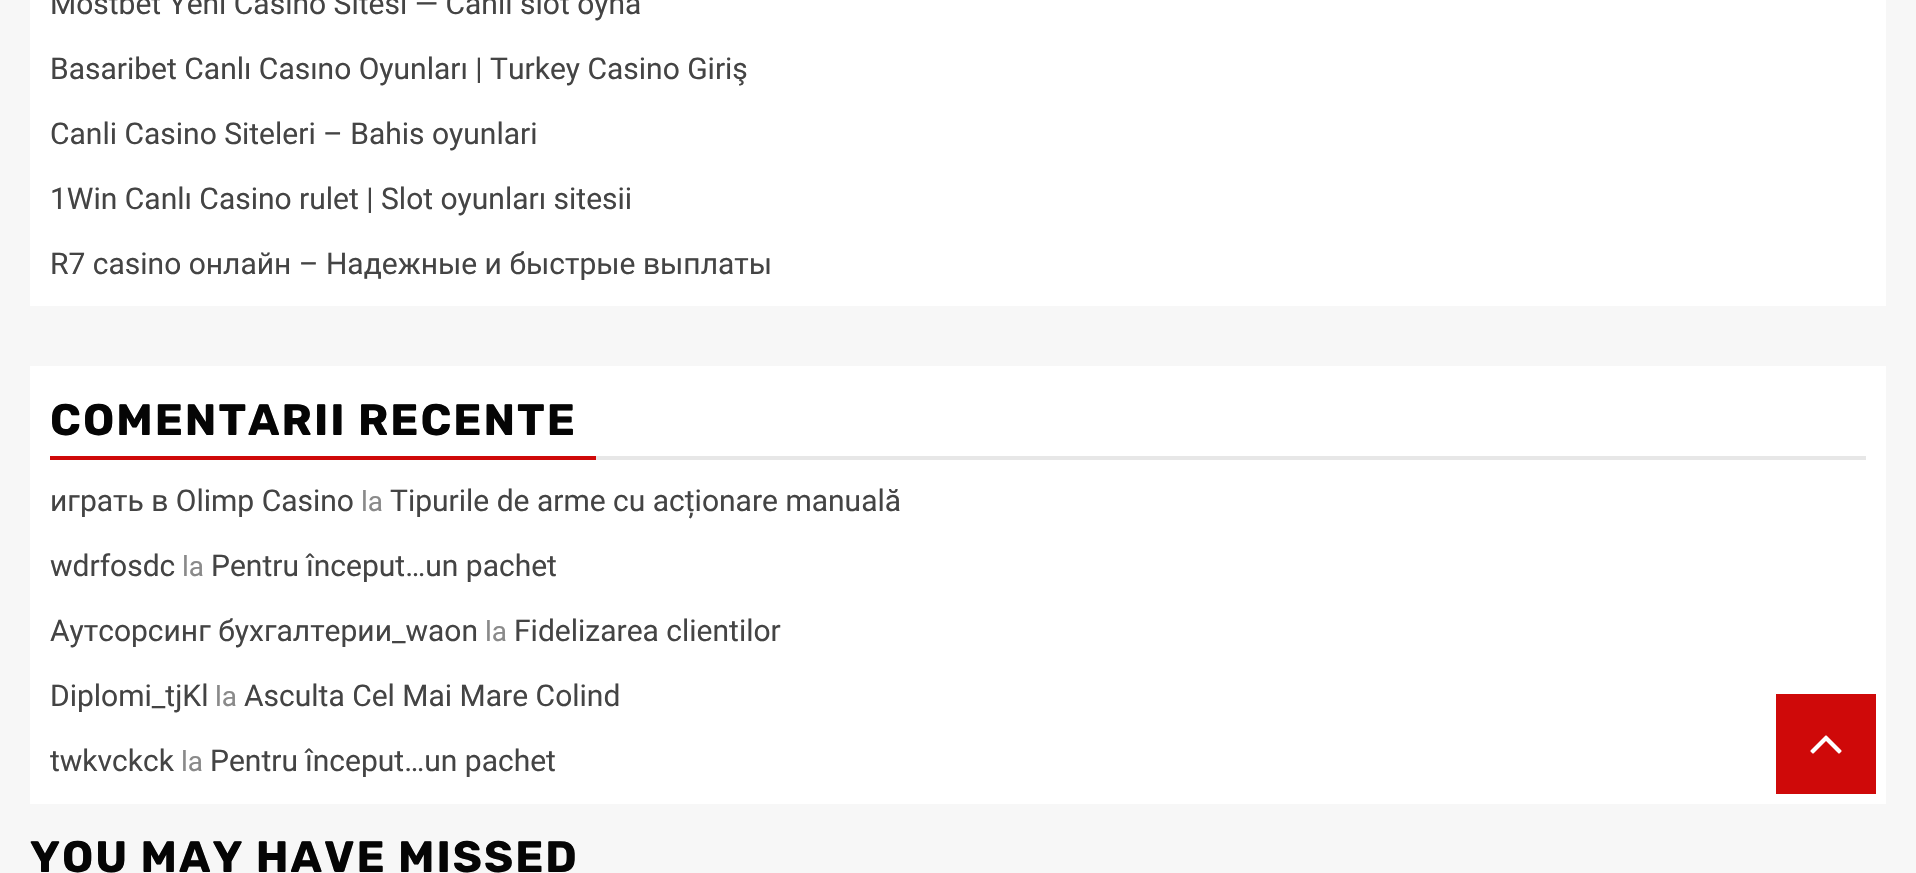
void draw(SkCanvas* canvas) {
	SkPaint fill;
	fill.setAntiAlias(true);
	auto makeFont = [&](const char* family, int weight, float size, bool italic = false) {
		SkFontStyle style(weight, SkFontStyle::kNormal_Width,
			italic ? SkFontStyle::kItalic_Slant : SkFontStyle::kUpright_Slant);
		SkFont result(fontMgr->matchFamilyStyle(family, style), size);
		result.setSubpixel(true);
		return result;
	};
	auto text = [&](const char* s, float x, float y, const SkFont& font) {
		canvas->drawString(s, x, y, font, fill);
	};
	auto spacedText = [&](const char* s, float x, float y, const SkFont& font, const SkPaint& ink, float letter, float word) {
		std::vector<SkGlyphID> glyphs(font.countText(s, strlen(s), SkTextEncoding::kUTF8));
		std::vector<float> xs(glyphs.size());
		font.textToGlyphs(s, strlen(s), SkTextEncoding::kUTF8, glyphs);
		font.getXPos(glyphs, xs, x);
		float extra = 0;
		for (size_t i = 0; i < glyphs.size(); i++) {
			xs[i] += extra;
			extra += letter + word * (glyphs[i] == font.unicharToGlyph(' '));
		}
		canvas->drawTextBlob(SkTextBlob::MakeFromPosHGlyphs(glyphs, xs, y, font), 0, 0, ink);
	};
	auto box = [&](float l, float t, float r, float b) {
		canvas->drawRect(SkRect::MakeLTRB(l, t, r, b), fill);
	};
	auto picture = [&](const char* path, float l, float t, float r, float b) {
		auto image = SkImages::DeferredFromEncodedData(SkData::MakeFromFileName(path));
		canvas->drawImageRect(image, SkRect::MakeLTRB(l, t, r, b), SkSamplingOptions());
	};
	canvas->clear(0xFFF7F7F7);
	fill.setColor(0xFFFFFFFF);
	box(30, 0, 1886, 306);
	box(30, 366, 1886, 804);
	fill.setColor(0xFFCF0909);
	box(50, 456, 596, 460);
	fill.setColor(0xFFE7E7E7);
	box(596, 456, 1866, 460);
	fill.setColor(0xFFCF0909);
	box(1776, 694, 1876, 794);
	picture("image0.png", 1810, 735, 1842, 754);
	auto font1 = makeFont("Roboto", 400, 30);
	fill.setColor(0xFF444444);
	text("Mostbet Yeni Casino Sitesi — Canlı slot oyna", 50, 14, font1);
	text("Basaribet Canlı Casıno Oyunları | Turkey Casino Giriş", 50, 79, font1);
	text("Canli Casino Siteleri – Bahis oyunlari", 50, 144, font1);
	text("1Win Canlı Casino rulet | Slot oyunları sitesii", 50, 209, font1);
	text("R7 casino онлайн – Надежные и быстрые выплаты", 50, 274, font1);
	auto font2 = makeFont("Rubik", 700, 44);
	fill.setColor(0xFF050505);
	spacedText("COMENTARII RECENTE", 50, 435, font2, fill, 2, 0);
	fill.setColor(0xFF444444);
	text("играть в Olimp Casino", 50, 511, font1);
	auto font3 = makeFont("Roboto", 400, 28);
	fill.setColor(0xFF8A8A8A);
	text("la", 361, 511, font3);
	fill.setColor(0xFF444444);
	text("Tipurile de arme cu acționare manuală", 390, 511, font1);
	text("wdrfosdc", 50, 576, font1);
	fill.setColor(0xFF8A8A8A);
	text("la", 182, 576, font3);
	fill.setColor(0xFF444444);
	text("Pentru început…un pachet", 211, 576, font1);
	text("Аутсорсинг бухгалтерии_waon", 50, 641, font1);
	fill.setColor(0xFF8A8A8A);
	text("la", 485, 641, font3);
	fill.setColor(0xFF444444);
	text("Fidelizarea clientilor", 514, 641, font1);
	text("Diplomi_tjKl", 50, 706, font1);
	fill.setColor(0xFF8A8A8A);
	text("la", 215, 706, font3);
	fill.setColor(0xFF444444);
	text("Asculta Cel Mai Mare Colind", 244, 706, font1);
	text("twkvckck", 50, 771, font1);
	fill.setColor(0xFF8A8A8A);
	text("la", 181, 771, font3);
	fill.setColor(0xFF444444);
	text("Pentru început…un pachet", 210, 771, font1);
	fill.setColor(0xFF050505);
	spacedText("YOU MAY HAVE MISSED", 30, 872, font2, fill, 2, 0);
}
